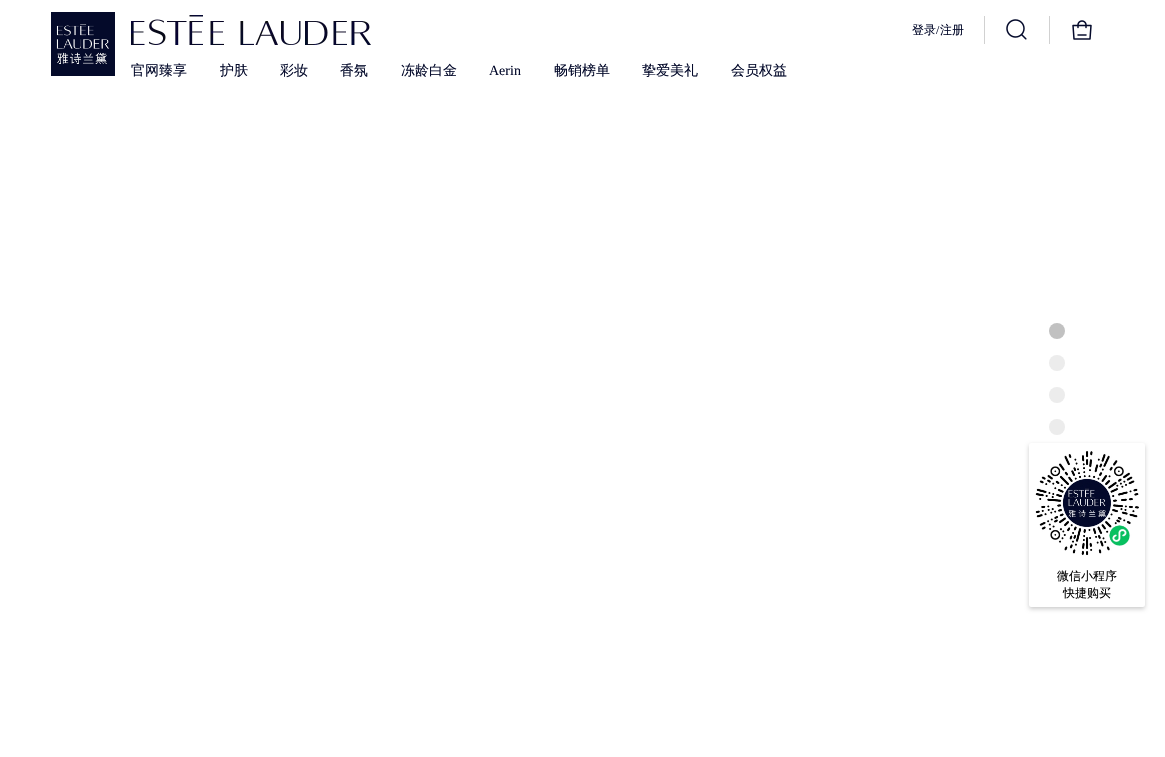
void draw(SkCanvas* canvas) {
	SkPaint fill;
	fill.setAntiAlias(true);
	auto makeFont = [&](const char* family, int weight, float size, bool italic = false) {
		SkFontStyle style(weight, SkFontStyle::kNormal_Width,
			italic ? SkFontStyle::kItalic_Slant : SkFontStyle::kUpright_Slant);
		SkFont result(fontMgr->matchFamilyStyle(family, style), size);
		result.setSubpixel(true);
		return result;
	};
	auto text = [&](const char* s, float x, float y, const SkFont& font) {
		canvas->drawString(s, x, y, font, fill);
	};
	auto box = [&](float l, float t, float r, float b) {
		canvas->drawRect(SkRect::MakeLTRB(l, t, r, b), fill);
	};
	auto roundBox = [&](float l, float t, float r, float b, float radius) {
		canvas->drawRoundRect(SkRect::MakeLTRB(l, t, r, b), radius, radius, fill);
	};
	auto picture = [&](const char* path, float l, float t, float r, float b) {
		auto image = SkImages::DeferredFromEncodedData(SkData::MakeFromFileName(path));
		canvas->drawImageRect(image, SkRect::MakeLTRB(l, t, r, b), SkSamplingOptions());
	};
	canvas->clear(0xFFFFFFFF);
	picture("image0.png", 51, 12, 115, 76);
	picture("image1.png", 131, 15, 371, 45);
	fill.setColor(0xFFD1D1D1);
	box(984, 16, 985, 44);
	picture("image2.png", 1006, 19, 1027, 40);
	box(1049, 16, 1050, 44);
	picture("image3.png", 1072, 20, 1092, 40);
	fill.setColor(0xFFC1C1C1);
	canvas->drawCircle(1057, 331, 8, fill);
	fill.setColor(0xFFECECEC);
	canvas->drawCircle(1057, 363, 8, fill);
	canvas->drawCircle(1057, 395, 8, fill);
	canvas->drawCircle(1057, 427, 8, fill);
	fill.setColor(0x33000000);
	fill.setMaskFilter(SkMaskFilter::MakeBlur(kNormal_SkBlurStyle, 2));
	canvas->drawRoundRect(SkRect::MakeLTRB(1029, 445, 1145, 609), 2, 2, fill);
	fill.setMaskFilter(nullptr);
	fill.setColor(0xFFFFFFFF);
	roundBox(1029, 443, 1145, 607, 2);
	picture("image4.png", 1035, 451, 1139, 556);
	auto font1 = makeFont("WenQuanYi Zen Hei", 500, 12);
	fill.setColor(0xFF040A2B);
	text("登录", 912, 34, font1);
	auto font2 = makeFont("Liberation Serif", 400, 12);
	text("/", 936, 34, font2);
	text("注册", 940, 34, font1);
	auto font3 = makeFont("WenQuanYi Zen Hei", 500, 14);
	text("官网臻享", 131, 75, font3);
	text("护肤", 220, 75, font3);
	text("彩妆", 280, 75, font3);
	text("香氛", 340, 75, font3);
	text("冻龄白金", 401, 75, font3);
	auto font4 = makeFont("Liberation Serif", 400, 14);
	text("Aerin", 489, 75, font4);
	text("畅销榜单", 554, 75, font3);
	text("挚爱美礼", 642, 75, font3);
	text("会员权益", 731, 75, font3);
	fill.setColor(0xFF000000);
	text("微信小程序", 1057, 580, font1);
	text("快捷购买", 1063, 597, font1);
}
